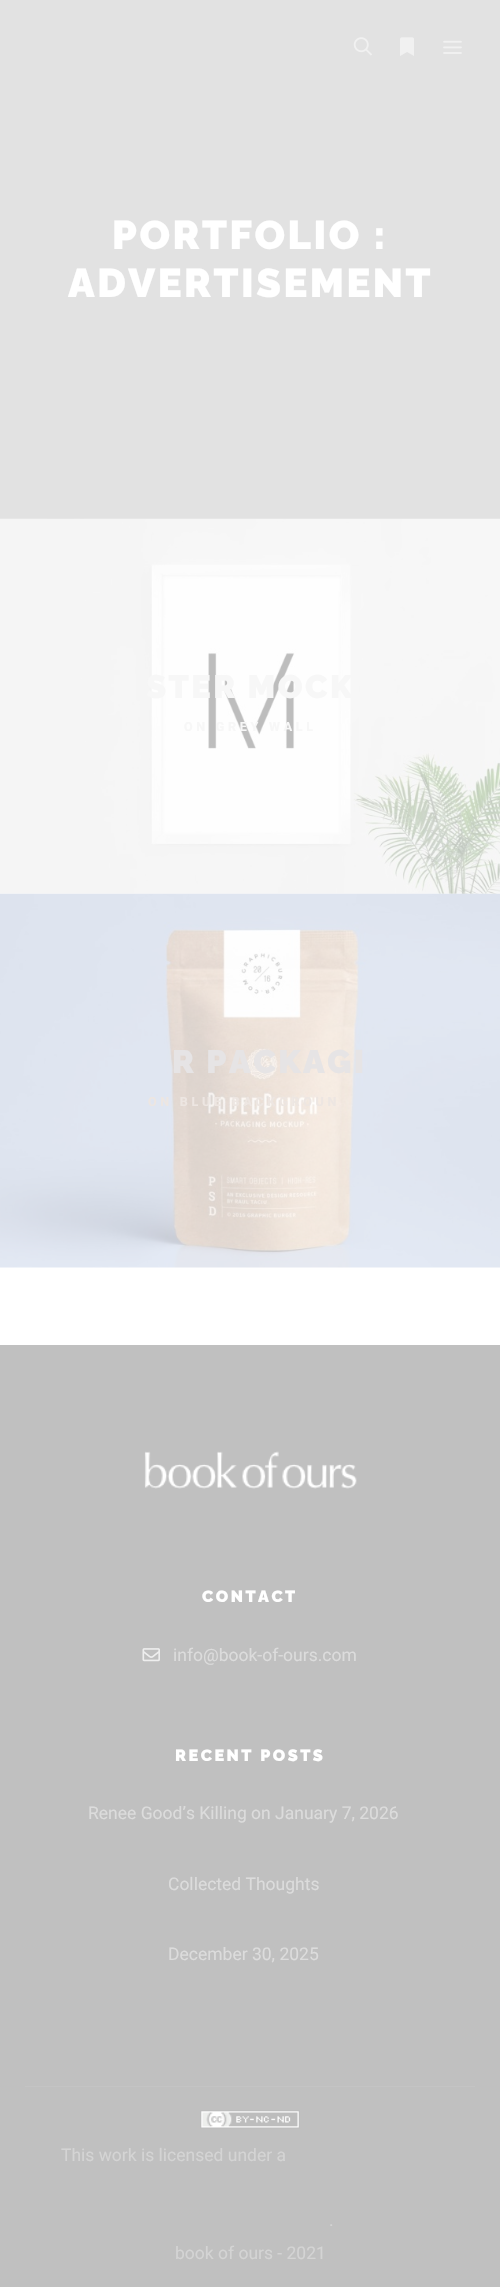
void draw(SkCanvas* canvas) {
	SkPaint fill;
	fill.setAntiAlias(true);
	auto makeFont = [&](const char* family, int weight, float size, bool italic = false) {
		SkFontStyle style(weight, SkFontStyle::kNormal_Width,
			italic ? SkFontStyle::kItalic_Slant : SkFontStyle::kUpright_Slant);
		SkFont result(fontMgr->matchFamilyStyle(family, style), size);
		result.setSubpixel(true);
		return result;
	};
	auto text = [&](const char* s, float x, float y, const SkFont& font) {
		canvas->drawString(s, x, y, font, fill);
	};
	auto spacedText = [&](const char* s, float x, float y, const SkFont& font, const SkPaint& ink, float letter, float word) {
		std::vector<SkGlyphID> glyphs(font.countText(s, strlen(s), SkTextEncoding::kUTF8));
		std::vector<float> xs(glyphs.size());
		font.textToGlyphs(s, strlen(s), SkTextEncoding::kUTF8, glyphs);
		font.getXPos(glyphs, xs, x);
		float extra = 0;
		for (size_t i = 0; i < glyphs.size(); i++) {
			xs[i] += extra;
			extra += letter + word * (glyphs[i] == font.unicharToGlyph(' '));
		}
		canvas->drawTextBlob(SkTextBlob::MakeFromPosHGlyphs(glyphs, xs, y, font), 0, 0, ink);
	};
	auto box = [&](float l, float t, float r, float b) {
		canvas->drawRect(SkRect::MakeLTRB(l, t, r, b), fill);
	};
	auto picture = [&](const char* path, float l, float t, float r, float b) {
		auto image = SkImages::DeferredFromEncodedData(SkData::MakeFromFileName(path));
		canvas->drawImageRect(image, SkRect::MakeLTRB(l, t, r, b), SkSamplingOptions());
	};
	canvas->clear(0xFFFFFFFF);
	fill.setColor(0xFFE2E2E2);
	box(0, 0, 500, 519);
	picture("image0.png", 353, 37, 372, 56);
	picture("image1.png", 400, 37, 414, 56);
	picture("image2.png", 443, 40, 462, 54);
	picture("image3.png", 0, 518, 500, 894);
	picture("image4.png", 0, 893, 500, 1268);
	fill.setColor(0xFFC0C0C0);
	box(0, 1345, 500, 2287);
	picture("image5.png", 144, 1451, 357, 1489);
	picture("image6.png", 142, 1648, 160, 1662);
	fill.setColor(0xFFC4C4C4);
	box(25, 2086, 475, 2087);
	picture("image7.png", 200, 2110, 300, 2129);
	auto font1 = makeFont("Raleway", 900, 40);
	fill.setColor(0xFFFFFFFF);
	spacedText("PORTFOLIO :", 112, 249, font1, fill, 2.5f, 0);
	spacedText("ADVERTISEMENT", 68, 297, font1, fill, 2.5f, 0);
	auto font2 = makeFont("Raleway", 900, 32.5f);
	fill.setColor(0xFFF7F7F7);
	spacedText("STER MOCK", 146, 698, font2, fill, 2.5f, 0);
	auto font3 = makeFont("Roboto", 700, 12.5f);
	spacedText("ON GREY WALL", 184, 731, font3, fill, 3.75f, 0);
	fill.setColor(0xFFE6E4E5);
	spacedText("R PACKAGI", 172, 1073, font2, fill, 2.5f, 0);
	fill.setColor(0xFFEDE6E2);
	spacedText("ON BLUE BACKGROUN", 148, 1106, font3, fill, 3.75f, 0);
	auto font4 = makeFont("Raleway", 900, 16.25f);
	fill.setColor(0xFFFFFFFF);
	spacedText("CONTACT", 202, 1602, font4, fill, 2.5f, 0);
	auto font5 = makeFont("Roboto", 400, 17.5f);
	fill.setColor(0xFFDCDCDC);
	text("info@book-of-ours.com", 173, 1661, font5);
	fill.setColor(0xFFFFFFFF);
	spacedText("RECENT POSTS", 175, 1761, font4, fill, 2.5f, 0);
	fill.setColor(0xFFDCDCDC);
	text("Renee Good’s Killing on January 7, 2026", 88, 1819, font5);
	text("Collected Thoughts", 168, 1890, font5);
	text("December 30, 2025", 168, 1960, font5);
	fill.setColor(0xFFD4D4D4);
	text("This work is licensed under a", 61, 2161, font5);
	text(".", 329, 2226, font5);
	text("book of ours - 2021", 175, 2259, font5);
}
